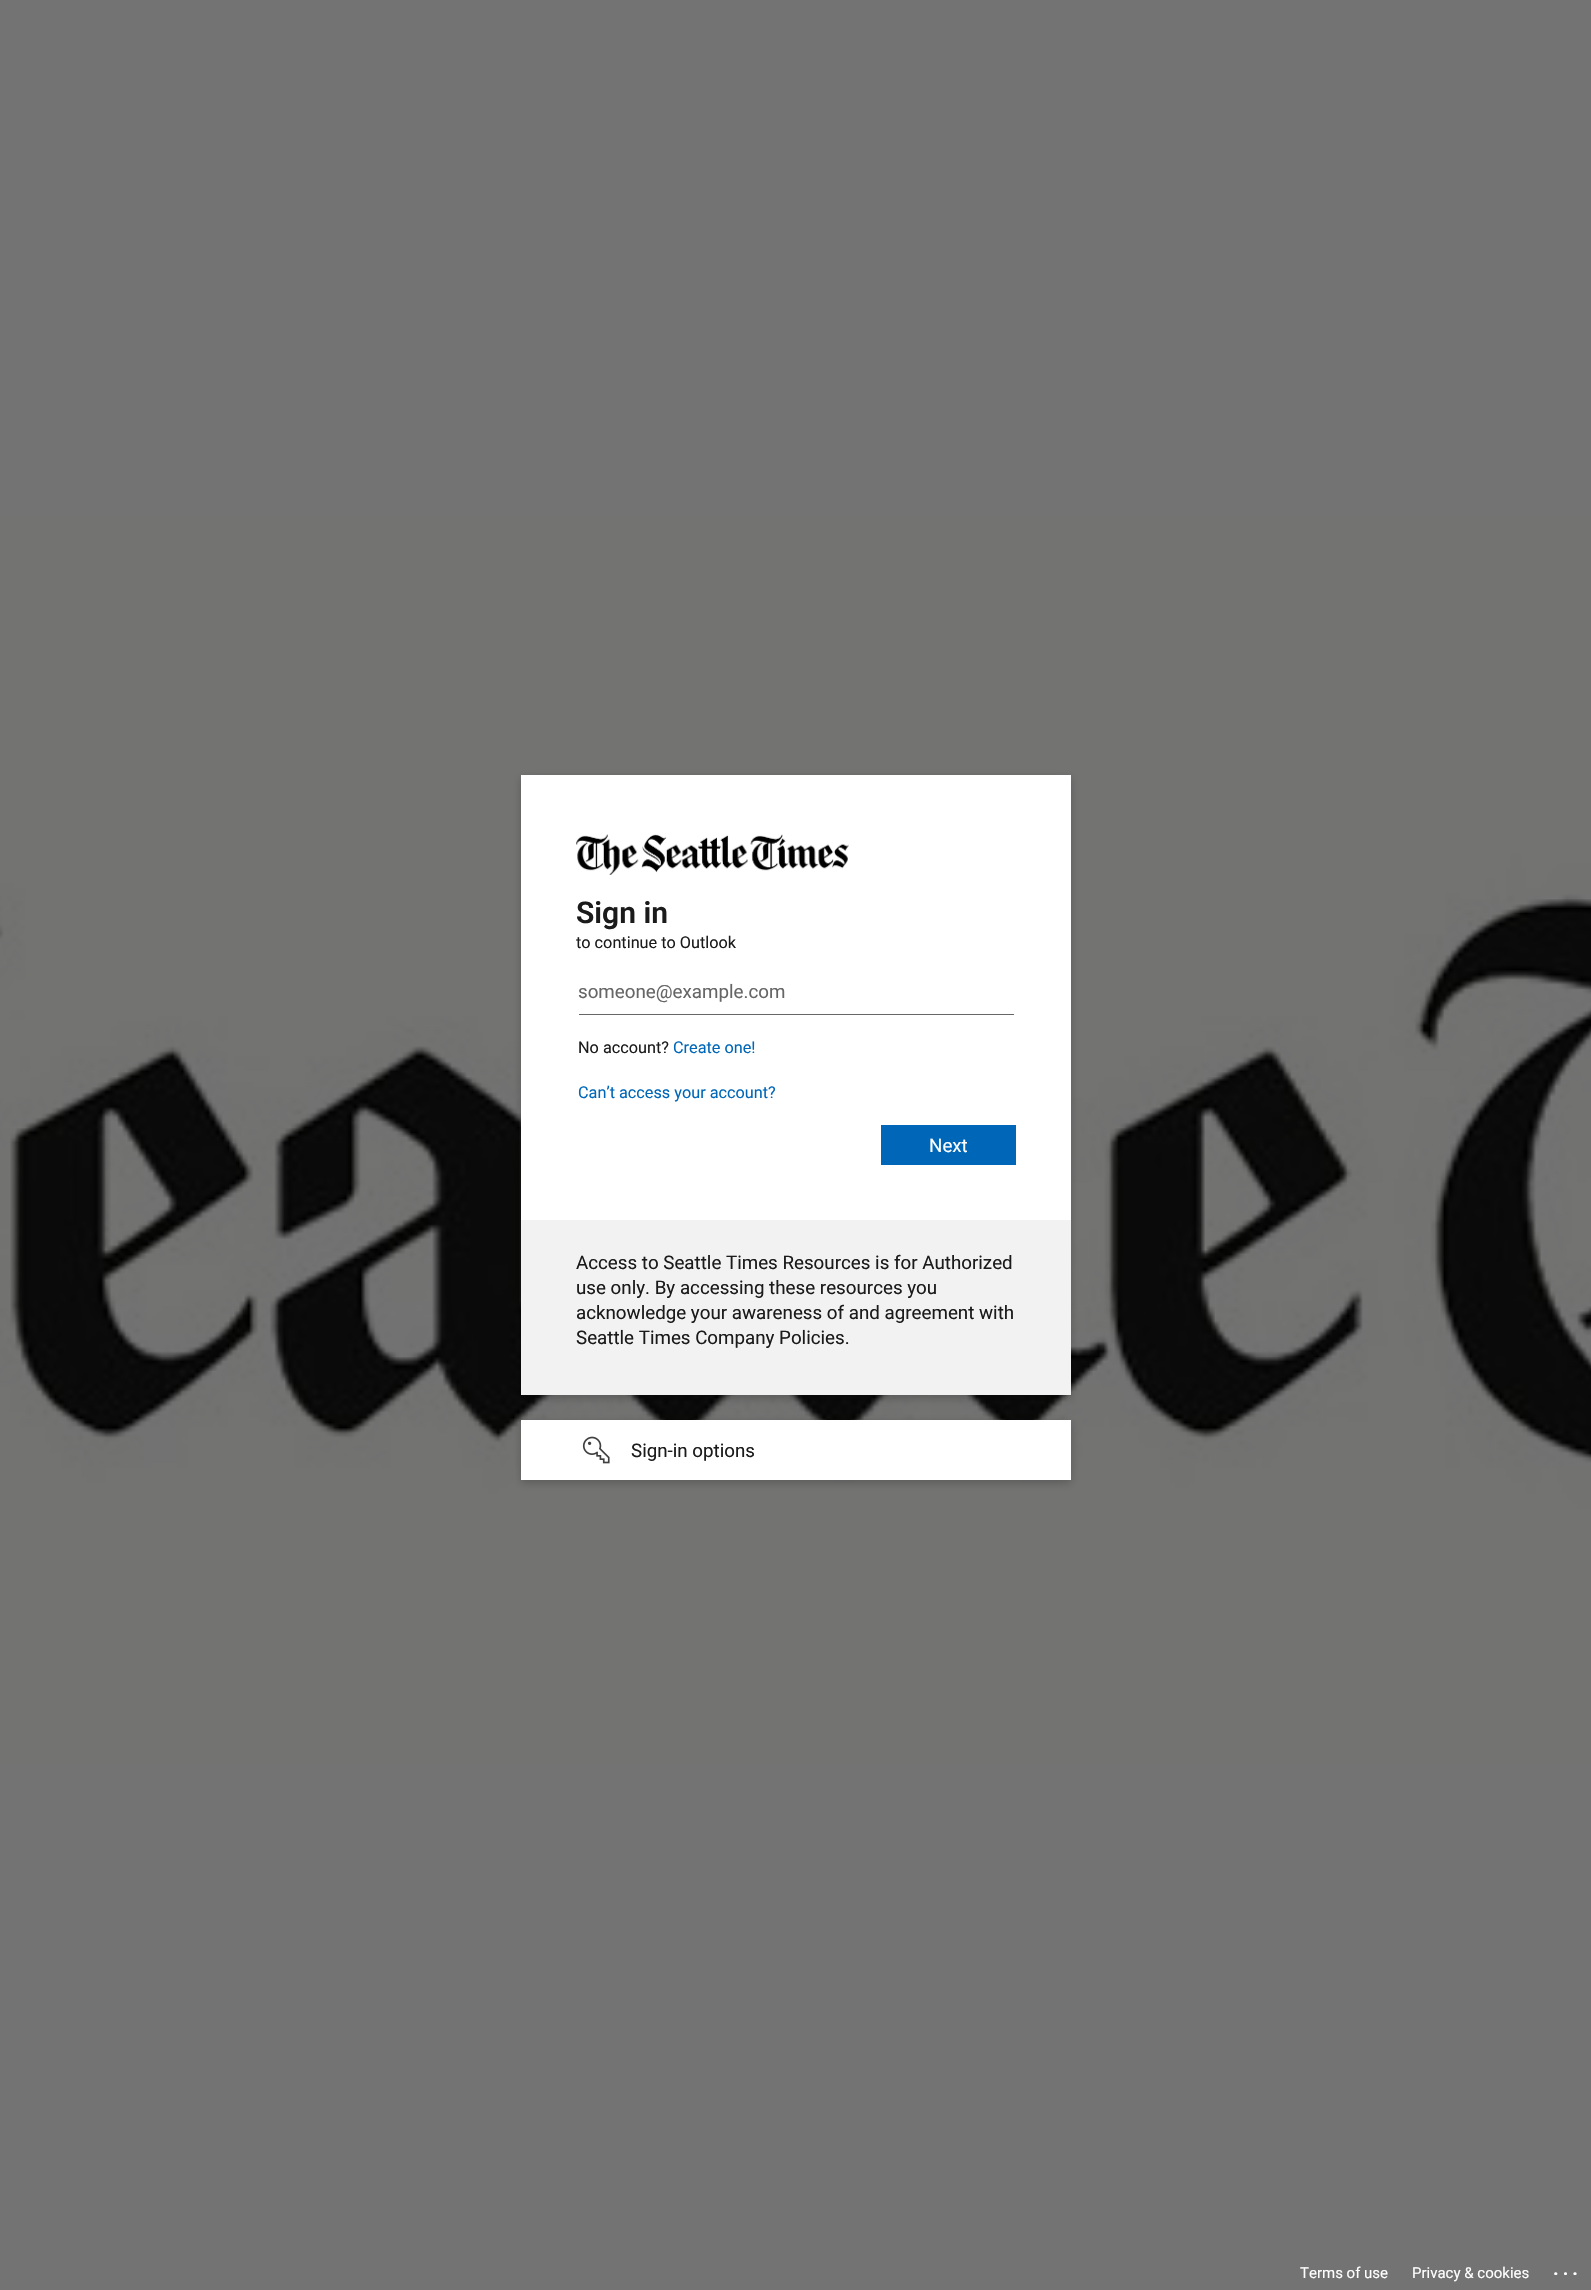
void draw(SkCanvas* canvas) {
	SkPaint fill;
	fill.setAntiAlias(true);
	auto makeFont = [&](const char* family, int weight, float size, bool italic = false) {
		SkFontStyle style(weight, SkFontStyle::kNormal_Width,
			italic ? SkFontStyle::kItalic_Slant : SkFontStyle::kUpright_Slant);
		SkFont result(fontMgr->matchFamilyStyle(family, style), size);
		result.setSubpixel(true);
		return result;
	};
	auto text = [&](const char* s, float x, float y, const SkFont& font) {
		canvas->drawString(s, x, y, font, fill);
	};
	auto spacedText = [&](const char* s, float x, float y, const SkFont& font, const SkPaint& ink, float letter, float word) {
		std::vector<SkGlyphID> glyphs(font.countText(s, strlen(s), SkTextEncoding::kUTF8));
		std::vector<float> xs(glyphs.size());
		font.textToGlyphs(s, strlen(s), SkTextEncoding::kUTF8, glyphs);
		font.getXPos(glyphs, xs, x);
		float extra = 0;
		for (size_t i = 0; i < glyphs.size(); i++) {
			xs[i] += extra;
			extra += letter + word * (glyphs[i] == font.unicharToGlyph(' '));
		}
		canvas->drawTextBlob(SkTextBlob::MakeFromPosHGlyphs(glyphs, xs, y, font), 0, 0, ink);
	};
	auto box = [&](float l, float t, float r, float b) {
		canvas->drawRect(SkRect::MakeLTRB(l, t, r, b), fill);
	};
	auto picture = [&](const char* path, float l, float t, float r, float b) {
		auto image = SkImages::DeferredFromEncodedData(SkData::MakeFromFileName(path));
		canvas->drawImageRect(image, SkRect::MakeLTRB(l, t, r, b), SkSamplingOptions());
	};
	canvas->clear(0xFFFFFFFF);
	picture("image0.png", 0, 0, 1591, 2290);
	fill.setColor(0x33000000);
	fill.setMaskFilter(SkMaskFilter::MakeBlur(kNormal_SkBlurStyle, 4));
	canvas->drawRect(SkRect::MakeLTRB(521, 778, 1071, 1398), fill);
	fill.setMaskFilter(nullptr);
	fill.setColor(0xFFFFFFFF);
	box(521, 775, 1071, 1220);
	picture("image1.png", 576, 834, 849, 875);
	fill.setColor(0xFF666666);
	box(579, 1014, 1014, 1015);
	fill.setColor(0xFF0067B8);
	box(881, 1125, 1016, 1165);
	fill.setColor(0xFFF2F2F2);
	box(521, 1220, 1071, 1395);
	fill.setColor(0x33000000);
	fill.setMaskFilter(SkMaskFilter::MakeBlur(kNormal_SkBlurStyle, 4));
	canvas->drawRect(SkRect::MakeLTRB(521, 1423, 1071, 1483), fill);
	fill.setMaskFilter(nullptr);
	fill.setColor(0xFFFFFFFF);
	box(521, 1420, 1071, 1480);
	picture("image2.png", 582, 1436, 610, 1464);
	auto font1 = makeFont("Roboto", 600, 30);
	fill.setColor(0xFF1B1B1B);
	text("Sign in", 576, 923, font1);
	auto font2 = makeFont("Roboto", 400, 16.25f);
	text("to continue to Outlook", 576, 948, font2);
	auto font3 = makeFont("Roboto", 400, 18.75f);
	fill.setColor(0xFF666666);
	text("someone@example.com", 578, 998, font3);
	fill.setColor(0xFF1B1B1B);
	text("No account?", 578, 1053, font2);
	fill.setColor(0xFF0067B8);
	text("Create one!", 673, 1053, font2);
	text("Can’t access your account?", 578, 1098, font2);
	fill.setColor(0xFFFFFFFF);
	text("Next", 929, 1152, font3);
	fill.setColor(0xFF1B1B1B);
	text("Access to Seattle Times Resources is for Authorized", 576, 1269, font3);
	text("use only. By accessing these resources you", 576, 1294, font3);
	text("acknowledge your awareness of and agreement with", 576, 1319, font3);
	text("Seattle Times Company Policies.", 576, 1344, font3);
	text("Sign-in options", 631, 1457, font3);
	auto font4 = makeFont("Roboto", 400, 15);
	fill.setColor(0xFFFFFFFF);
	text("Terms of use", 1300, 2278, font4);
	text("Privacy & cookies", 1412, 2278, font4);
	auto font5 = makeFont("Roboto", 600, 20);
	spacedText("...", 1553, 2275, font5, fill, 4, 0);
}
